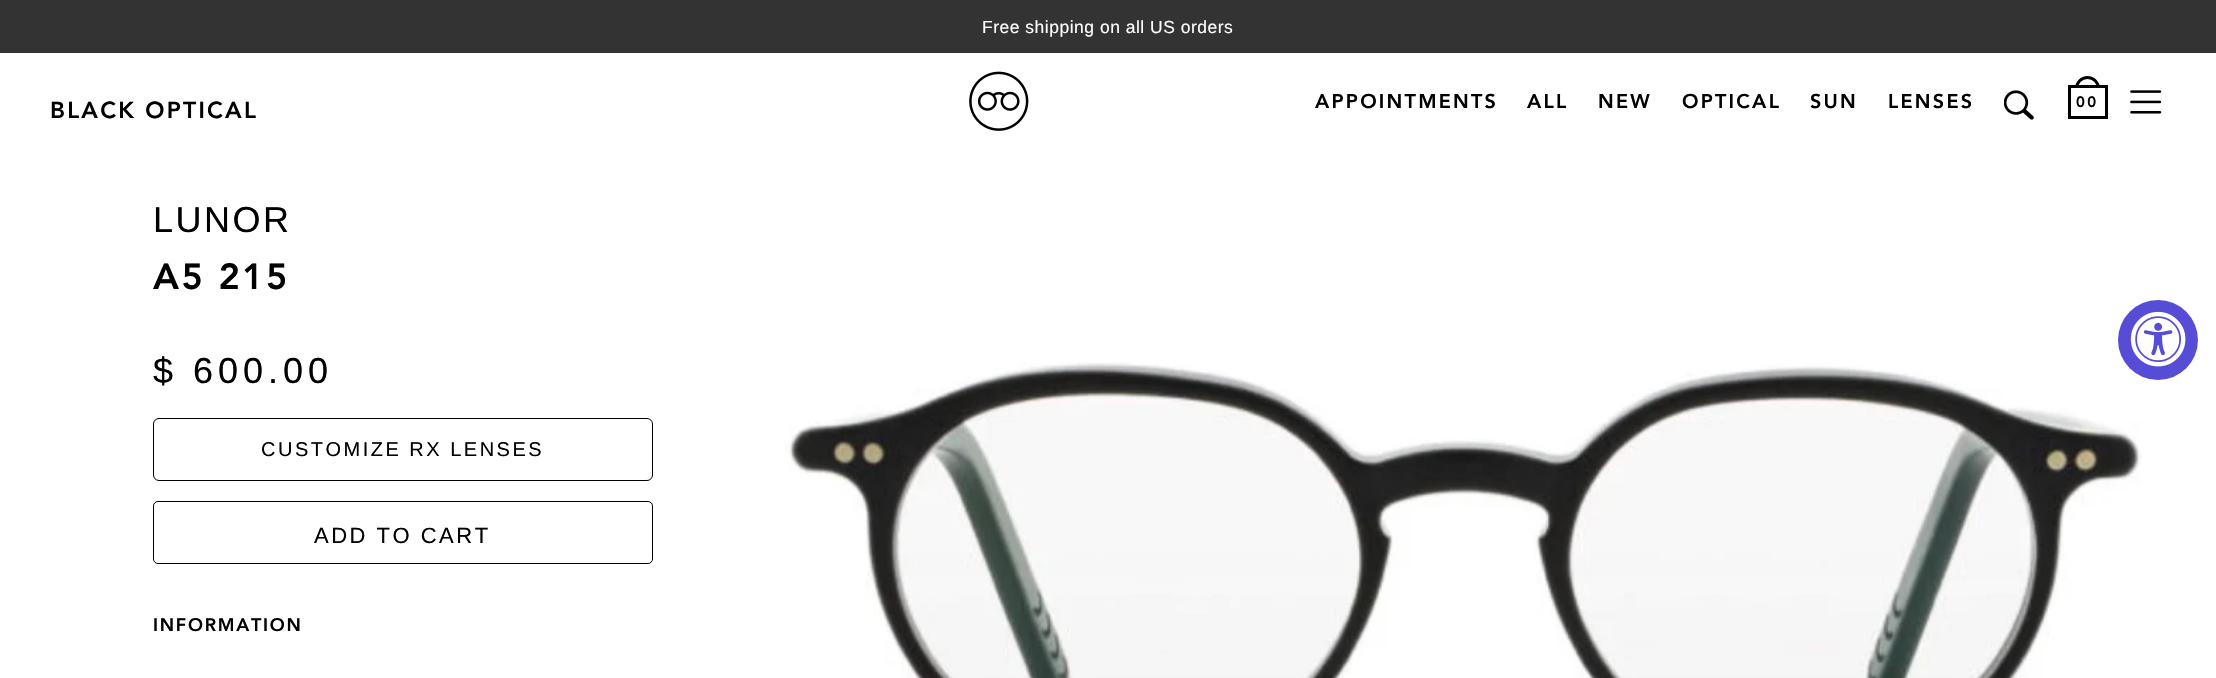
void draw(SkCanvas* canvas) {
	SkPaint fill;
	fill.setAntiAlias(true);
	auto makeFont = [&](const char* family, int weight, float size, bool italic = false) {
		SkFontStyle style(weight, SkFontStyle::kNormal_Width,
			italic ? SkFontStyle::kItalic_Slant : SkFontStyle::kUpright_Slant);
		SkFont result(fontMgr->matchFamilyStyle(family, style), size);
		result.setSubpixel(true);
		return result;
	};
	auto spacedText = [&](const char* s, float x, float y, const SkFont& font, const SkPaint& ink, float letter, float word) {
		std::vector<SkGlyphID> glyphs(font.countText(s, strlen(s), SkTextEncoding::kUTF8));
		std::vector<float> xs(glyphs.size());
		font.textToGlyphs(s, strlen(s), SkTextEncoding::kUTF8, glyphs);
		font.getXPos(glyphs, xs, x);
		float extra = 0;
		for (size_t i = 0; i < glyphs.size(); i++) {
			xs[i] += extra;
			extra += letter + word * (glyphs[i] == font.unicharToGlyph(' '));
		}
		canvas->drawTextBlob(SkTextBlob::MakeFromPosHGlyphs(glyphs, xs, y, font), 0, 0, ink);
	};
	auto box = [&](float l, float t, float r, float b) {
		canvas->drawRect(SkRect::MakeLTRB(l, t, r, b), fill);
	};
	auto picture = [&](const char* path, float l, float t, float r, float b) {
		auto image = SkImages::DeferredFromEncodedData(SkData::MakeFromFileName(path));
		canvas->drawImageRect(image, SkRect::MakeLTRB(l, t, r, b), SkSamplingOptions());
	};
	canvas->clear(0xFFFFFFFF);
	fill.setColor(0xFF333333);
	box(0, 0, 2216, 53);
	picture("image0.png", 969, 71, 1029, 131);
	picture("image1.png", 2004, 90, 2034, 120);
	fill.setStyle(SkPaint::kStroke_Style);
	fill.setStrokeWidth(3);
	fill.setColor(0xFF000000);
	canvas->drawCircle(2087.5f, 88.5f, 11, fill);
	fill.setStyle(SkPaint::kFill_Style);
	fill.setColor(0xFFFFFFFF);
	box(2075, 88, 2100, 101);
	fill.setStyle(SkPaint::kStroke_Style);
	fill.setColor(0xFF000000);
	canvas->drawRect(SkRect::MakeLTRB(2069.5f, 86.5f, 2106.5f, 117.5f), fill);
	picture("image2.png", 2130, 90, 2162, 114);
	fill.setStrokeWidth(1);
	canvas->drawRoundRect(SkRect::MakeLTRB(153.5f, 418.5f, 652.5f, 480.5f), 5.5f, 5.5f, fill);
	canvas->drawRoundRect(SkRect::MakeLTRB(153.5f, 501.5f, 652.5f, 563.5f), 4.5f, 4.5f, fill);
	picture("image3.png", 785, 362, 2142, 678);
	fill.setStyle(SkPaint::kFill_Style);
	fill.setColor(0xFF574CD5);
	canvas->drawCircle(2158, 340, 40, fill);
	picture("image4.png", 2130, 311, 2186, 367);
	auto font1 = makeFont("Liberation Sans", 400, 17.5f);
	fill.setColor(0xFFFFFFFF);
	spacedText("Free shipping on all US orders", 982, 33, font1, fill, 0.5f, 0);
	auto font2 = makeFont("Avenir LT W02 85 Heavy", 900, 23);
	fill.setColor(0xFF000000);
	spacedText("BLACK OPTICAL", 50, 118, font2, fill, 2.25f, 0);
	auto font3 = makeFont("Avenir LT W02 85 Heavy", 900, 19.75f);
	spacedText("APPOINTMENTS", 1315, 108, font3, fill, 2.25f, 0);
	spacedText("ALL", 1527, 108, font3, fill, 2.25f, 0);
	spacedText("NEW", 1598, 108, font3, fill, 2.25f, 0);
	spacedText("OPTICAL", 1682, 108, font3, fill, 2.25f, 0);
	spacedText("SUN", 1810, 108, font3, fill, 2.25f, 0);
	spacedText("LENSES", 1888, 108, font3, fill, 2.25f, 0);
	auto font4 = makeFont("Avenir LT W02 85 Heavy", 900, 15);
	spacedText("00", 2076, 107, font4, fill, 2.25f, 0);
	auto font5 = makeFont("Liberation Sans", 400, 36);
	spacedText("LUNOR", 153, 232, font5, fill, 2.5f, 0);
	auto font6 = makeFont("Avenir LT W02 85 Heavy", 900, 36);
	spacedText("A5 215", 153, 289, font6, fill, 2.5f, 0);
	spacedText("$ 600.00", 153, 383, font5, fill, 5, 0);
	auto font7 = makeFont("Liberation Sans", 400, 20);
	spacedText("CUSTOMIZE RX LENSES", 261, 456, font7, fill, 2.5f, 0);
	auto font8 = makeFont("Liberation Sans", 400, 22);
	spacedText("ADD TO CART", 314, 543, font8, fill, 2.5f, 0);
	auto font9 = makeFont("Avenir LT W02 85 Heavy", 900, 18);
	spacedText("INFORMATION", 153, 631, font9, fill, 1.75f, 0);
}
